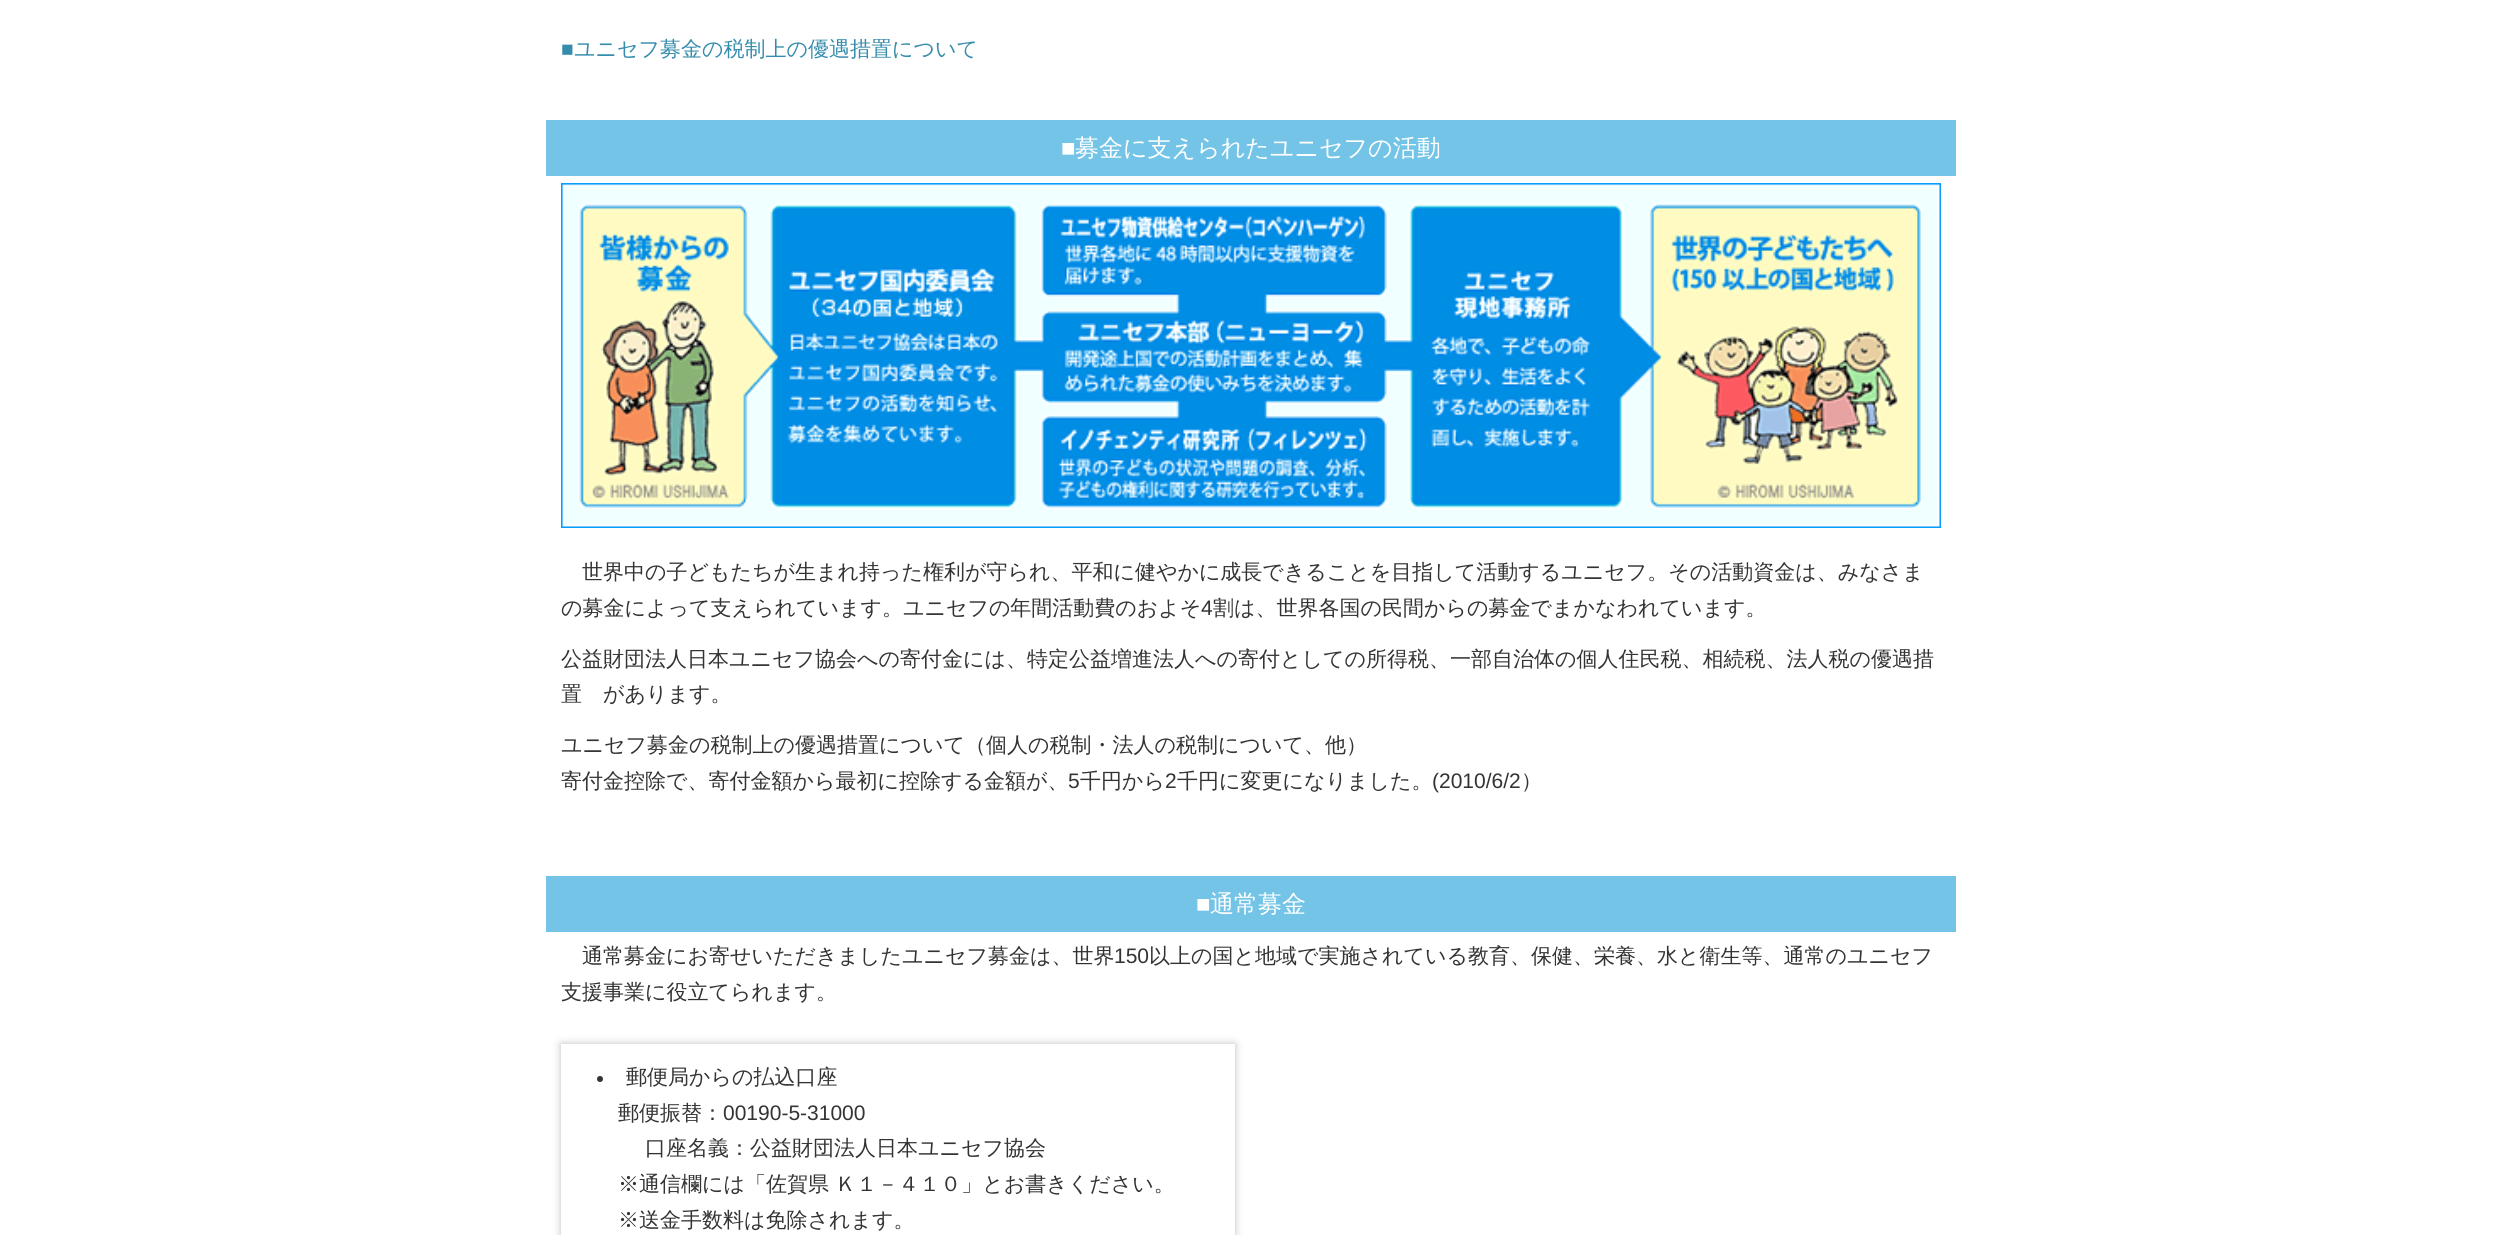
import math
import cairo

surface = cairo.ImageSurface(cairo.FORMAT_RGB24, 2501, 1235)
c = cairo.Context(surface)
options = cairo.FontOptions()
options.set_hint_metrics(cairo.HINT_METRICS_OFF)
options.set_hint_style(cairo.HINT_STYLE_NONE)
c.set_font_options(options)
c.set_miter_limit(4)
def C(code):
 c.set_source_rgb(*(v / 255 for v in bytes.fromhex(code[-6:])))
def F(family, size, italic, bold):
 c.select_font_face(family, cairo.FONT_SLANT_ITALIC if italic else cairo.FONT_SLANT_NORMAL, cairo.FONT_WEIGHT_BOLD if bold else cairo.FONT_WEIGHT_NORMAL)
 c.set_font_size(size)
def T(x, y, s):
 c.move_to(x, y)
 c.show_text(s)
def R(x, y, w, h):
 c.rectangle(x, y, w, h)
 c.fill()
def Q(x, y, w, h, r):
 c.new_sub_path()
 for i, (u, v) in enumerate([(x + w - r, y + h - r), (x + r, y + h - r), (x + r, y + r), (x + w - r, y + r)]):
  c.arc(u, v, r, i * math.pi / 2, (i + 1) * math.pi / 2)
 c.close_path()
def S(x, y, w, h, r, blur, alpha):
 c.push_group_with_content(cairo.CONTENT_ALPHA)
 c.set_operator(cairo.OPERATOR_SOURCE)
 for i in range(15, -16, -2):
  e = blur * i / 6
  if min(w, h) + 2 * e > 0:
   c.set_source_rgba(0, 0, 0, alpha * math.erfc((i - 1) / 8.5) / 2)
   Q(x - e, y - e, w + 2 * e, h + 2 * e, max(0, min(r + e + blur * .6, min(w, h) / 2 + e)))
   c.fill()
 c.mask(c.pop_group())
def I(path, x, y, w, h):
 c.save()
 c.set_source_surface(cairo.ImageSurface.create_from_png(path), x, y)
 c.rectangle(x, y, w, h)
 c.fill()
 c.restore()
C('ffffff')
c.paint()
F('Liberation Sans',21,0,0)
C('358cac')
T(561,56,'■')
F('WenQuanYi Zen Hei Medium',21,0,0)
T(574,56,'ユニセフ募金の税制上の優遇措置について')
C('73c4e6')
R(546,120,1410,56)
F('Liberation Sans',24,0,0)
C('ffffff')
T(1061,156,'■')
F('WenQuanYi Zen Hei Medium',24,0,0)
T(1075,156,'募金に支えられたユニセフの活動')
I('1.png',561,183,1380,345)
F('WenQuanYi Zen Hei Medium',21,0,0)
C('333333')
T(582,579,'世界中の子どもたちが生まれ持った権利が守られ、平和に健やかに成長できることを目指して活動するユニセフ。その活動資金は、みなさま')
T(561,615,'の募金によって支えられています。ユニセフの年間活動費のおよそ')
F('Liberation Sans',21,0,0)
T(1201,615,'4')
F('WenQuanYi Zen Hei Medium',21,0,0)
T(1213,615,'割は、世界各国の民間からの募金でまかなわれています。')
T(561,666,'公益財団法人日本ユニセフ協会への寄付金には、特定公益増進法人への寄付としての所得税、一部自治体の個人住民税、相続税、法人税の優遇措')
T(561,701,'置　があります。')
T(561,752,'ユニセフ募金の税制上の優遇措置について（個人の税制・法人の税制について、他）')
T(561,788,'寄付金控除で、寄付金額から最初に控除する金額が、')
F('Liberation Sans',21,0,0)
T(1068,788,'5')
F('WenQuanYi Zen Hei Medium',21,0,0)
T(1080,788,'千円から')
F('Liberation Sans',21,0,0)
T(1165,788,'2')
F('WenQuanYi Zen Hei Medium',21,0,0)
T(1177,788,'千円に変更になりました。')
F('Liberation Sans',21,0,0)
T(1432,788,'(2010/6/2')
F('WenQuanYi Zen Hei Medium',21,0,0)
T(1521,788,'）')
C('73c4e6')
R(546,876,1410,56)
F('Liberation Sans',24,0,0)
C('ffffff')
T(1196,912,'■')
F('WenQuanYi Zen Hei Medium',24,0,0)
T(1210,912,'通常募金')
F('WenQuanYi Zen Hei Medium',21,0,0)
C('333333')
T(582,963,'通常募金にお寄せいただきましたユニセフ募金は、世界')
F('Liberation Sans',21,0,0)
T(1114,963,'150')
F('WenQuanYi Zen Hei Medium',21,0,0)
T(1149,963,'以上の国と地域で実施されている教育、保健、栄養、水と衛生等、通常のユニセフ')
T(561,999,'支援事業に役立てられます。')
c.save()
c.set_fill_rule(cairo.FILL_RULE_EVEN_ODD)
c.new_path()
c.move_to(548,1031)
c.line_to(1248,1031)
c.line_to(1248,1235)
c.line_to(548,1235)
c.close_path()
c.move_to(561,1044)
c.line_to(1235,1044)
c.line_to(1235,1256)
c.line_to(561,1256)
c.close_path()
c.clip()
C('c0c0c0')
S(561,1044,674,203,0,4,1)
c.restore()
c.arc(600,1079,3,0,2 * math.pi)
c.fill()
T(626,1084,'郵便局からの払込口座')
T(618,1120,'郵便振替：')
F('Liberation Sans',21,0,0)
T(723,1120,'00190-5-31000')
F('WenQuanYi Zen Hei Medium',21,0,0)
T(645,1155,'口座名義：公益財団法人日本ユニセフ協会')
T(618,1191,'※通信欄には「佐賀県 Ｋ１－４１０」とお書きください。')
T(618,1227,'※送金手数料は免除されます。')
surface.write_to_png('o.png')
